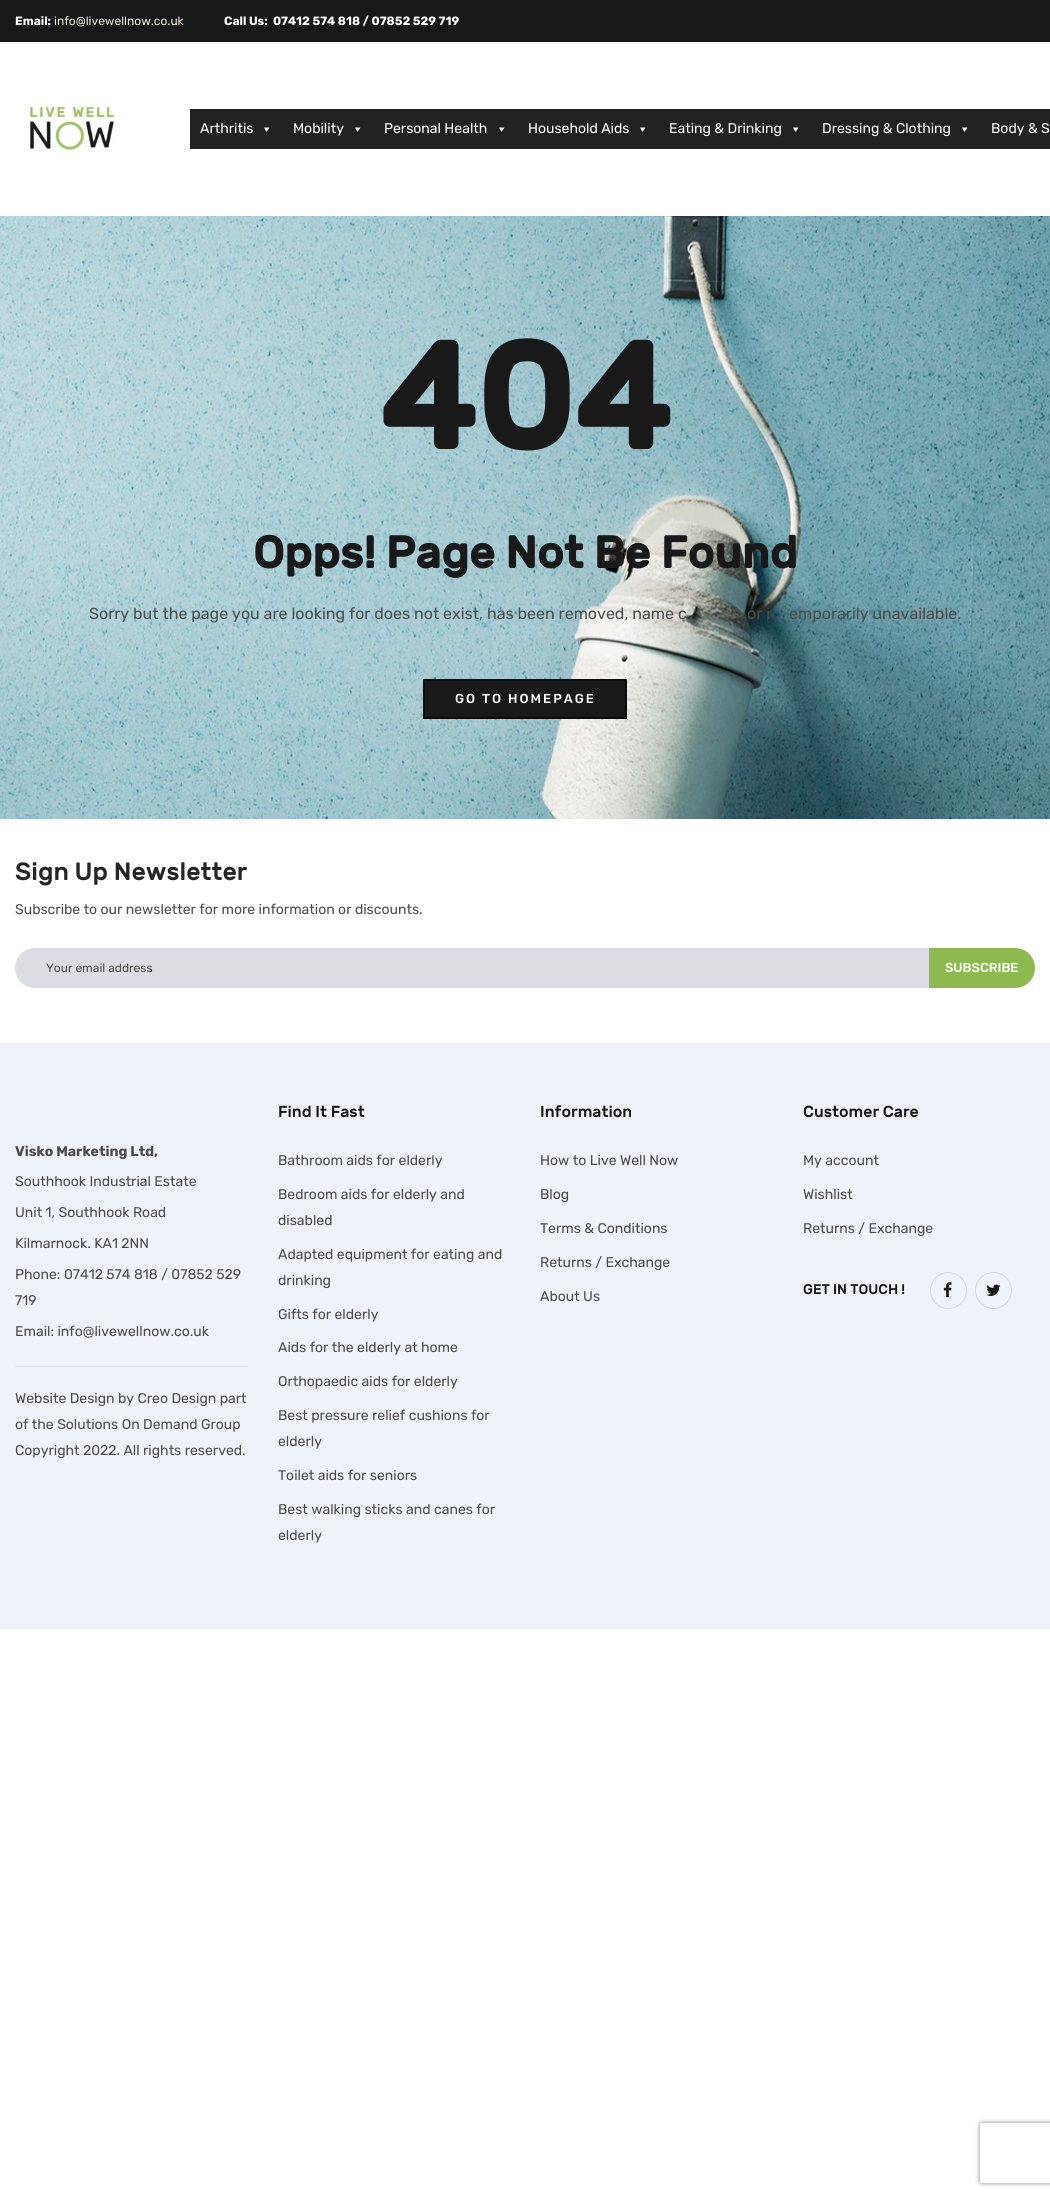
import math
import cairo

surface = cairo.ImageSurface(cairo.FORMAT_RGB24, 1050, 2197)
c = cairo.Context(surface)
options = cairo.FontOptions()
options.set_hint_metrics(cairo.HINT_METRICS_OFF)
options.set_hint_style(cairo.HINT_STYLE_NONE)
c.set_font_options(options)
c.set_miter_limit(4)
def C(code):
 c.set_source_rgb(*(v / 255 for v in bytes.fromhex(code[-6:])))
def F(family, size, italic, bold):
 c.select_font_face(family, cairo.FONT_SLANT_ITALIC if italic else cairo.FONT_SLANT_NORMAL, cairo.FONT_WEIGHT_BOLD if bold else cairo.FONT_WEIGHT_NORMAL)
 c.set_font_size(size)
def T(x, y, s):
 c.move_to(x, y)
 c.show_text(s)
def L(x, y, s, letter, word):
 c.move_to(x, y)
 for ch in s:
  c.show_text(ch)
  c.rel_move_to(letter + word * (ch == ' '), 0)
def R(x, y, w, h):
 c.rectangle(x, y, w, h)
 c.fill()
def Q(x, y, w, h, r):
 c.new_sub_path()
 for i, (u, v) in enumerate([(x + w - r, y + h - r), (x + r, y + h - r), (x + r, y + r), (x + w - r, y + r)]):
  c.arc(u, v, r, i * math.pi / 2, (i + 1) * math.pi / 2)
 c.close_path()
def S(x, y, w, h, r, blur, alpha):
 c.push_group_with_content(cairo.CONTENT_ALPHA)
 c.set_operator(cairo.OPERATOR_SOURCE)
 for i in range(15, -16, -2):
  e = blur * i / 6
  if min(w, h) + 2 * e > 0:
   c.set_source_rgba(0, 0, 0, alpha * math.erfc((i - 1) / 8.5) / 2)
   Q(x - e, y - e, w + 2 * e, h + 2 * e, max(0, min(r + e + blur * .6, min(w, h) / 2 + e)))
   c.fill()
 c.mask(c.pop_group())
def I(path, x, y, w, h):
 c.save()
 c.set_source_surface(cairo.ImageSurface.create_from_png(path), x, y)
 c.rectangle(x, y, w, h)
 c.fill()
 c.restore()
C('ffffff')
c.paint()
C('181818')
R(0,0,1050,42)
F('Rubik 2',12,0,1)
C('ffffff')
T(15,25,'Email:')
F('Rubik',12,0,0)
C('eeeae2')
T(54,25,'info@livewellnow.co.uk')
F('Rubik 2',12,0,1)
C('ffffff')
T(224,25,'Call Us:  07412 574 818 / 07852 529 719')
I('1.png',29,105,88,47)
C('222222')
R(190,109,860,40)
F('Rubik',14,0,0)
C('ffffff')
T(200,133,'Arthritis')
c.new_path()
c.move_to(269.5,127.5)
c.line_to(266.5,132)
c.line_to(264,127.5)
c.close_path()
c.fill()
T(293,133,'Mobility')
c.new_path()
c.move_to(360.5,127.5)
c.line_to(357.5,132)
c.line_to(355,127.5)
c.close_path()
c.fill()
T(384,133,'Personal Health')
c.new_path()
c.move_to(504.5,127.5)
c.line_to(501.5,132)
c.line_to(499,127.5)
c.close_path()
c.fill()
T(528,133,'Household Aids')
c.new_path()
c.move_to(645.5,127.5)
c.line_to(642.5,132)
c.line_to(640,127.5)
c.close_path()
c.fill()
T(669,133,'Eating & Drinking')
c.new_path()
c.move_to(798.5,127.5)
c.line_to(795.5,132)
c.line_to(793,127.5)
c.close_path()
c.fill()
T(822,133,'Dressing & Clothing')
c.new_path()
c.move_to(967.5,127.5)
c.line_to(964.5,132)
c.line_to(962,127.5)
c.close_path()
c.fill()
T(991,133,'Body & S')
I('2.png',0,216,1050,603)
F('Rubik',150,0,1)
C('191919')
T(379,449,'404')
F('Rubik',45,0,1)
T(253,568,'Opps! Page Not Be Found')
F('Rubik',16,0,0)
C('4c4c4c')
T(89,619,'Sorry but the page you are looking for does not exist, has been removed, name c')
T(747,619,'or i')
T(789,619,'emporarily unavailable.')
C('191919')
c.rectangle(424,680,202,38)
c.fill_preserve()
C('0c0c0c')
c.stroke()
F('Rubik Medium',13,0,0)
C('ffffff')
L(455,703,'GO TO HOMEPAGE',2,0)
C('f0f2f9')
R(0,1043,1050,586)
F('Rubik 2 Medium',25,0,0)
C('252525')
T(15,880,'Sign Up Newsletter')
F('Rubik',14,0,0)
C('4c4c4c')
T(15,914,'Subscribe to our newsletter for more information or discounts.')
C('8cba4f')
c.new_path()
c.move_to(929,949)
c.line_to(1015,949)
c.curve_to(1025.5,949,1034,957.5,1034,968)
c.curve_to(1034,978.5,1025.5,987,1015,987)
c.line_to(929,987)
c.close_path()
c.fill_preserve()
c.stroke()
C('dbdde3')
c.new_path()
c.move_to(35,948.5)
c.line_to(928.5,948.5)
c.line_to(928.5,987.5)
c.line_to(35,987.5)
c.curve_to(24,987.5,15.5,979,15.5,968)
c.curve_to(15.5,957,24,948.5,35,948.5)
c.close_path()
c.fill_preserve()
c.set_line_width(1)
c.stroke()
F('Rubik',12,0,0)
C('4c4c4c')
T(46,972,'Your email address')
F('Rubik Medium',13,0,0)
C('ffffff')
T(945,972,'SUBSCRIBE')
F('Rubik 2',14,0,1)
C('4c4c4c')
T(15,1156,'Visko Marketing Ltd,')
F('Rubik',14,0,0)
T(15,1186,'Southhook Industrial Estate')
T(15,1217,'Unit 1, Southhook Road')
T(15,1248,'Kilmarnock. KA1 2NN')
T(15,1279,'Phone: 07412 574 818 / 07852 529')
T(15,1305,'719')
T(15,1336,'Email: info@livewellnow.co.uk')
C('e3e4e8')
R(15,1366,233,1)
C('4c4c4c')
T(15,1403,'Website Design by Creo Design part')
T(15,1429,'of the Solutions On Demand Group')
T(15,1455,'Copyright 2022. All rights reserved.')
F('Rubik 2 Medium',16,0,0)
C('191919')
T(278,1117,'Find It Fast')
F('Rubik',14,0,0)
C('4c4c4c')
T(278,1165,'Bathroom aids for elderly')
T(278,1199,'Bedroom aids for elderly and')
T(278,1225,'disabled')
T(278,1259,'Adapted equipment for eating and')
T(278,1285,'drinking')
T(278,1319,'Gifts for elderly')
T(278,1352,'Aids for the elderly at home')
T(278,1386,'Orthopaedic aids for elderly')
T(278,1420,'Best pressure relief cushions for')
T(278,1446,'elderly')
T(278,1480,'Toilet aids for seniors')
T(278,1514,'Best walking sticks and canes for')
T(278,1540,'elderly')
F('Rubik 2 Medium',16,0,0)
C('191919')
T(540,1117,'Information')
F('Rubik',14,0,0)
C('4c4c4c')
T(540,1165,'How to Live Well Now')
T(540,1199,'Blog')
T(540,1233,'Terms & Conditions')
T(540,1267,'Returns / Exchange')
T(540,1301,'About Us')
F('Rubik 2 Medium',16,0,0)
C('191919')
T(803,1117,'Customer Care')
F('Rubik',14,0,0)
C('4c4c4c')
T(803,1165,'My account')
T(803,1199,'Wishlist')
T(803,1233,'Returns / Exchange')
F('Rubik 2 Medium',14,0,0)
C('191919')
T(803,1294,'GET IN TOUCH !')
c.new_path()
c.arc(948.5,1290.5,18,0,2 * math.pi)
C('d8d8d9')
c.stroke()
I('3.png',943,1282,9,16)
c.arc(993.5,1290.5,18,0,2 * math.pi)
c.stroke()
I('4.png',986,1284,15,12)
c.save()
c.set_fill_rule(cairo.FILL_RULE_EVEN_ODD)
c.new_path()
c.move_to(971,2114)
c.line_to(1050,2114)
c.line_to(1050,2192)
c.line_to(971,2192)
c.close_path()
c.move_to(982,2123)
c.line_to(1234,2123)
c.curve_to(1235,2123,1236,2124,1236,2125)
c.line_to(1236,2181)
c.curve_to(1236,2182,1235,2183,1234,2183)
c.line_to(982,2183)
c.curve_to(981,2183,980,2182,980,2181)
c.line_to(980,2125)
c.curve_to(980,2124,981,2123,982,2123)
c.close_path()
c.clip()
C('808080')
S(980,2123,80,60,2,2.5,1)
c.restore()
surface.write_to_png('o.png')
